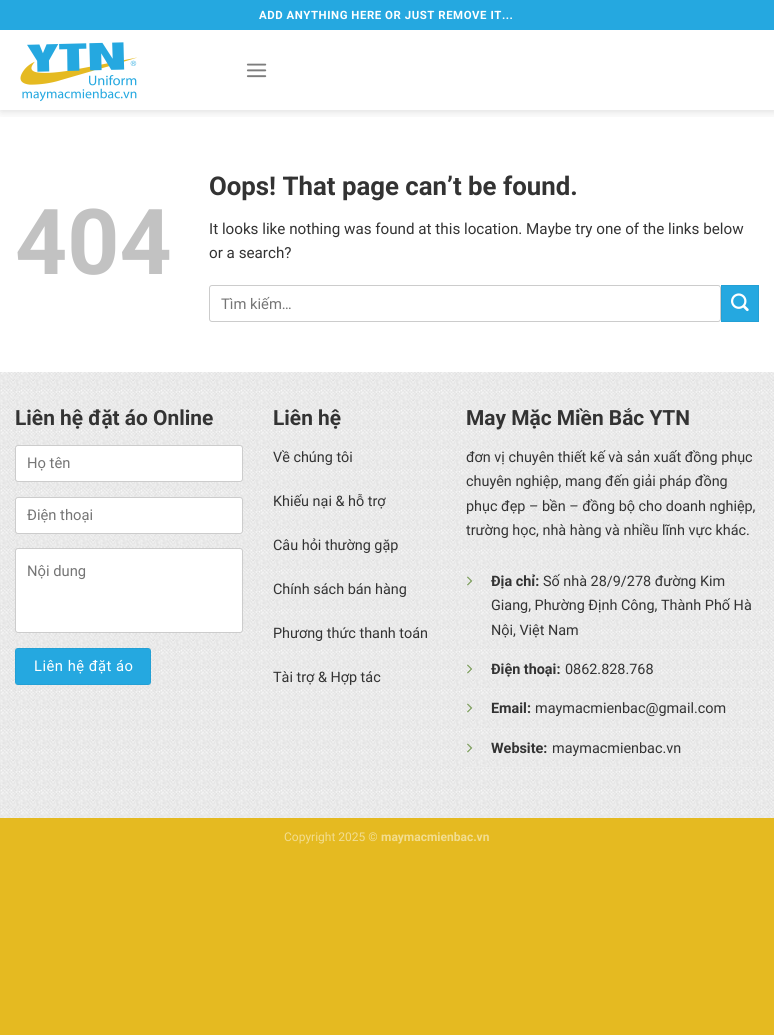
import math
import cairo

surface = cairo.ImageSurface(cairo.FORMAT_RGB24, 774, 1035)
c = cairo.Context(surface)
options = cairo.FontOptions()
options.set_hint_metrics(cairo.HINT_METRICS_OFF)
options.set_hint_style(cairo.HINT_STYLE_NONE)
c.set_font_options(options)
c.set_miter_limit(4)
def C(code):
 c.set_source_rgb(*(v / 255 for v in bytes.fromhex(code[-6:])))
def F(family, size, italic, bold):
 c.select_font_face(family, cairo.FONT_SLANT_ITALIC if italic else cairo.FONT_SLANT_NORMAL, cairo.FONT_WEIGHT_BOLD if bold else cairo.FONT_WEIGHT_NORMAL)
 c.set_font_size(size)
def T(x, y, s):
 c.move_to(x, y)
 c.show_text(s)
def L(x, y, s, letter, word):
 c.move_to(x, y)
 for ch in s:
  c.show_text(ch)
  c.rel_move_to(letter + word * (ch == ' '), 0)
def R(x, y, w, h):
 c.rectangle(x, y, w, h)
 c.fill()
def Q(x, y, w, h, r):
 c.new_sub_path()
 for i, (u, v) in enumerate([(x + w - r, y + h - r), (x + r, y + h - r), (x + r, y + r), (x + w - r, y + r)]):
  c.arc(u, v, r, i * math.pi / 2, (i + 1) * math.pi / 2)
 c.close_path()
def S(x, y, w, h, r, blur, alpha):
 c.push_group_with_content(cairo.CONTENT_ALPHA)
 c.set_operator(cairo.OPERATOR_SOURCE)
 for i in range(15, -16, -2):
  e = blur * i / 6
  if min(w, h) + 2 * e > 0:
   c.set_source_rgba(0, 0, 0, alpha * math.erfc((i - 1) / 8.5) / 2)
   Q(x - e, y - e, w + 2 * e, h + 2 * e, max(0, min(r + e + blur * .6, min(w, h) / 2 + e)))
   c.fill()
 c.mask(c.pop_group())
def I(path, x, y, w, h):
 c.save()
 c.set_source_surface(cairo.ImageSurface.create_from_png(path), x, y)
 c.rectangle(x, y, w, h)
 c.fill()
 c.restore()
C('e5ba21')
c.paint()
C('ffffff')
R(0,30,774,342)
c.save()
c.rectangle(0,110,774,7)
c.clip()
C('000000')
S(1,1,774,110,0,5,.15)
c.restore()
C('25a8e0')
R(0,0,774,30)
F('Roboto',11.4,0,1)
C('ffffff')
L(259,19,'ADD ANYTHING HERE OR JUST REMOVE IT...',.55,0)
I('1.png',20,42,117,60)
I('2.png',246,63,21,15)
F('Roboto',91,0,1)
C('c2c2c2')
T(15,274,'404')
F('Roboto',25.8,0,1)
C('333333')
T(209,195,'Oops! That page can’t be found.')
F('Roboto',15.2,0,0)
T(209,234,'It looks like nothing was found at this location. Maybe try one of the links below')
T(209,258,'or a search?')
Q(209.5,285.5,511,36,2.5)
C('cccccc')
c.set_line_width(1)
c.stroke()
F('Roboto',14.75,0,0)
C('757575')
T(221,309,'Tìm kiếm…')
C('25a8e0')
c.rectangle(721.5,285.5,37,36)
c.fill_preserve()
C('23a0d5')
c.stroke()
I('3.png',731,293,18,19)
I('4.png',0,372,774,446)
F('Roboto',20.9,0,1)
C('333333')
T(15,425,'Liên hệ đặt áo Online')
C('ffffff')
Q(15.5,445.5,227,36,2.5)
c.fill_preserve()
C('cccccc')
c.stroke()
F('Roboto',14.75,0,0)
C('757575')
T(27,468,'Họ tên')
C('ffffff')
Q(15.5,497.5,227,36,2.5)
c.fill_preserve()
C('cccccc')
c.stroke()
C('757575')
T(27,520,'Điện thoại')
C('ffffff')
Q(15.5,548.5,227,84,2.5)
c.fill_preserve()
C('cccccc')
c.stroke()
C('757575')
T(27,576,'Nội dung')
C('25a8e0')
Q(15,648,136,37,3)
c.fill()
c.rectangle(15.5,648.5,135,36)
c.set_source_rgba(0,0,0,0.05)
c.stroke()
C('ffffff')
L(34,671,'Liên hệ đặt áo',.5,0)
F('Roboto',20.9,0,1)
C('333333')
T(273,425,'Liên hệ')
F('Roboto',14.4,0,0)
T(273,462,'Về chúng tôi')
T(273,506,'Khiếu nại & hỗ trợ')
T(273,550,'Câu hỏi thường gặp')
T(273,594,'Chính sách bán hàng')
T(273,638,'Phương thức thanh toán')
T(273,682,'Tài trợ & Hợp tác')
F('Roboto',20.9,0,1)
T(466,425,'May Mặc Miền Bắc YTN')
F('Roboto',14.4,0,0)
T(466,462,'đơn vị chuyên thiết kế và sản xuất đồng phục')
T(466,486,'chuyên nghiệp, mang đến giải pháp đồng')
T(466,511,'phục đẹp – bền – đồng bộ cho doanh nghiệp,')
T(466,535,'trường học, nhà hàng và nhiều lĩnh vực khác.')
C('ececec')
R(466,649,293,1)
I('5.png',467,576,6,10)
F('Roboto',14.4,0,1)
C('333333')
T(491,586,'Địa chỉ:')
F('Roboto',14.4,0,0)
T(543,586,'Số nhà 28/9/278 đường Kim')
T(491,610,'Giang, Phường Định Công, Thành Phố Hà')
T(491,635,'Nội, Việt Nam')
C('ececec')
R(466,688,293,1)
I('6.png',467,664,6,10)
F('Roboto',14.4,0,1)
C('333333')
T(491,674,'Điện thoại:')
F('Roboto',14.4,0,0)
T(565,674,'0862.828.768')
C('ececec')
R(466,728,293,1)
I('7.png',467,703,6,10)
F('Roboto',14.4,0,1)
C('333333')
T(491,713,'Email:')
F('Roboto',14.4,0,0)
T(535,713,'maymacmienbac@gmail.com')
C('ececec')
R(466,767,293,1)
I('7.png',467,743,6,10)
F('Roboto',14.4,0,1)
C('333333')
T(491,753,'Website:')
F('Roboto',14.4,0,0)
T(552,753,'maymacmienbac.vn')
F('Roboto',12,0,0)
C('f2dd90')
T(284,841,'Copyright 2025 ©')
F('Roboto',12,0,1)
T(381,841,'maymacmienbac.vn')
surface.write_to_png('o.png')
